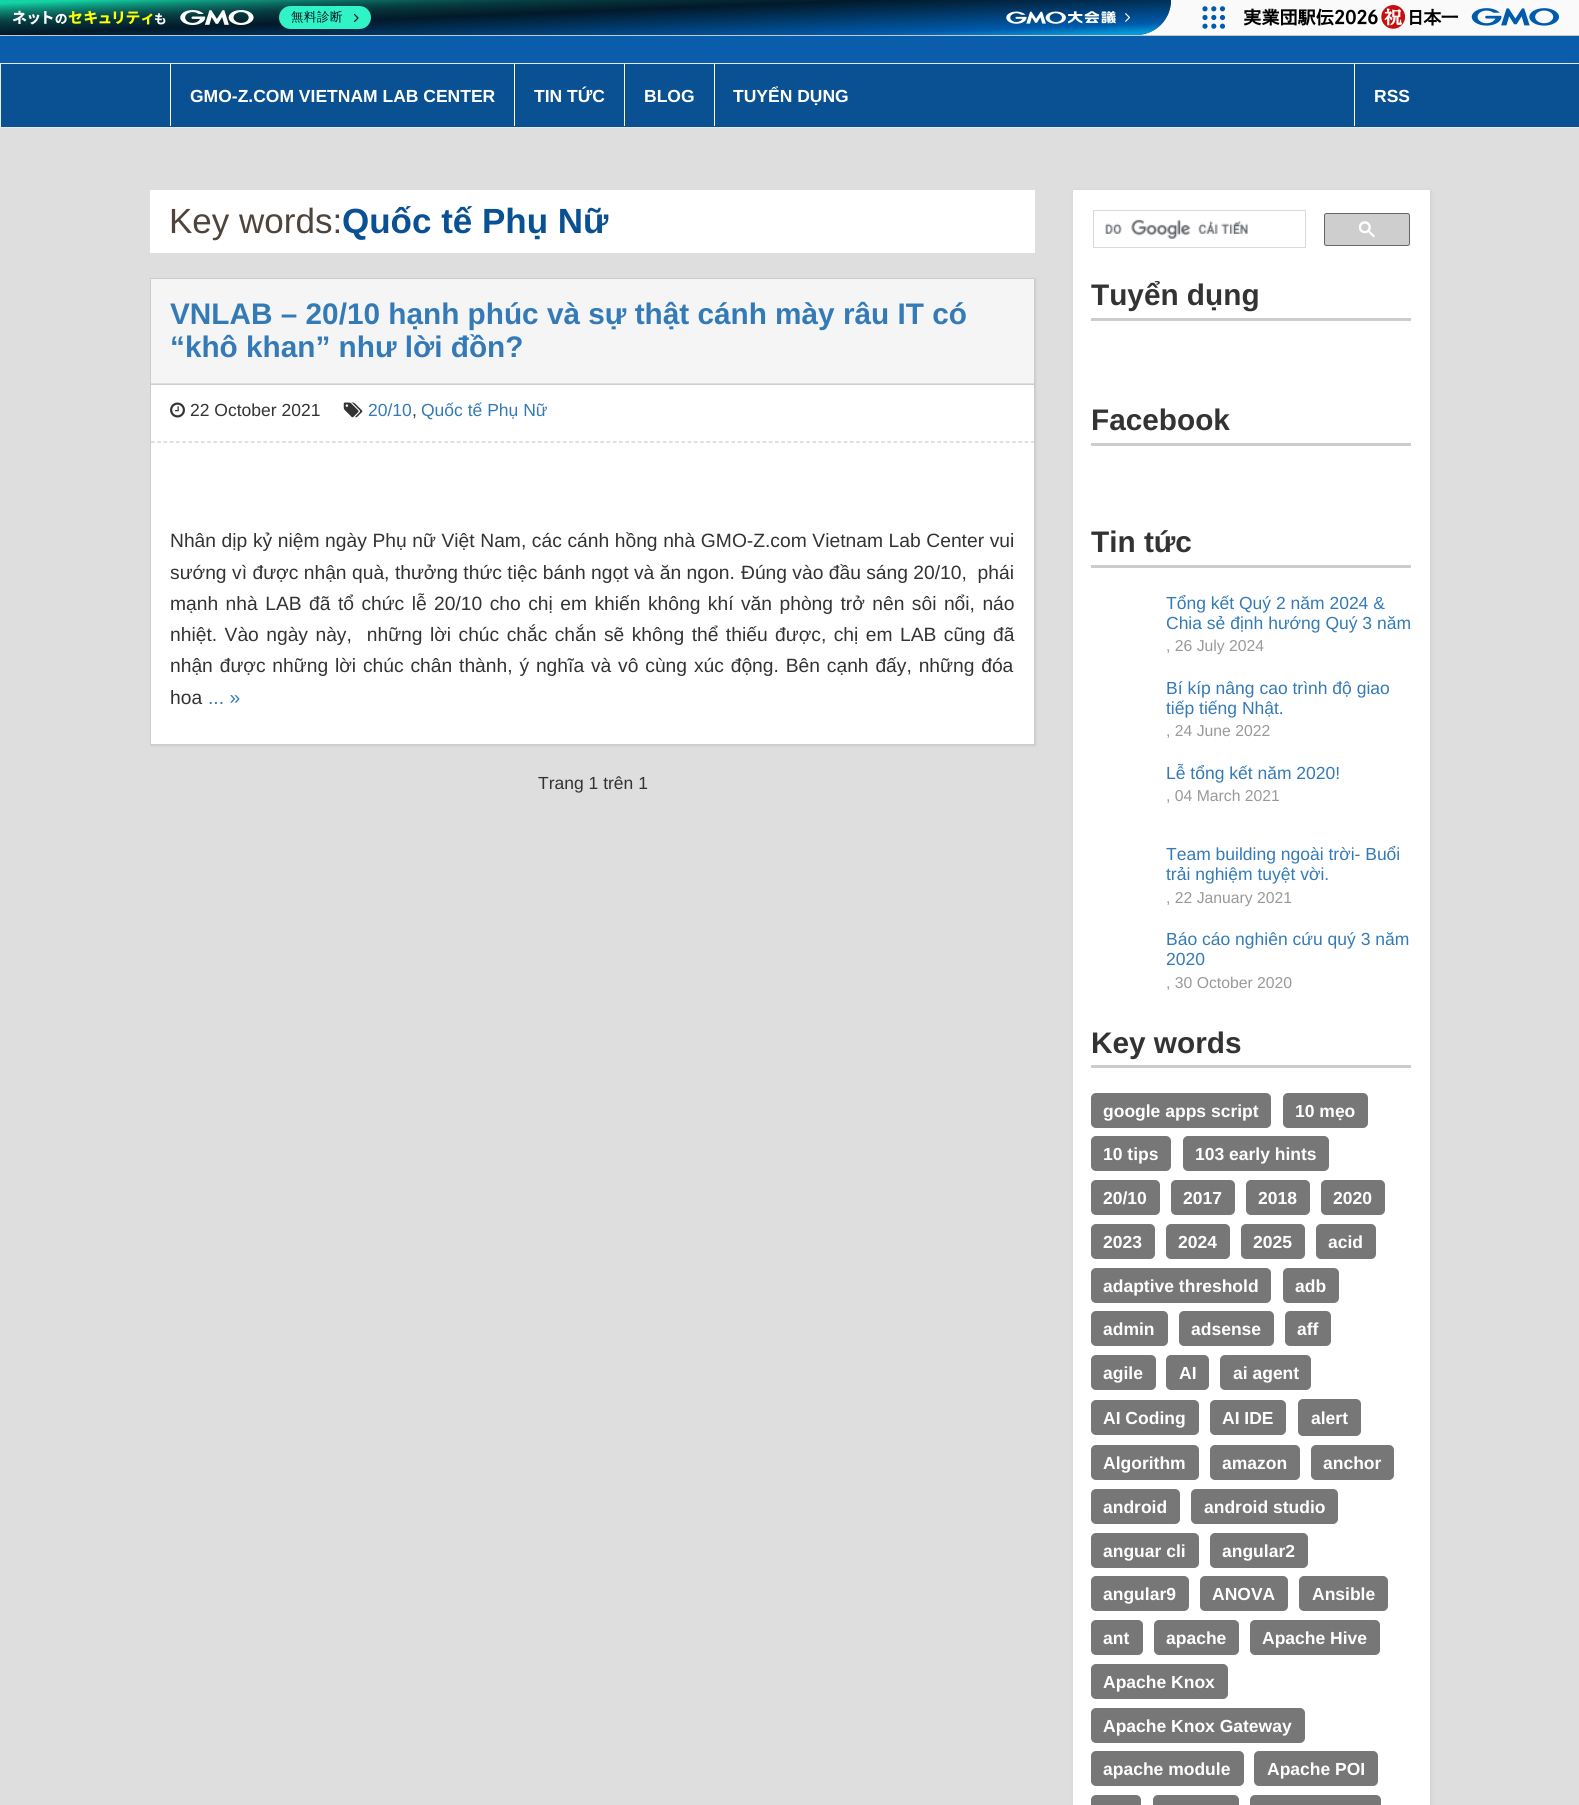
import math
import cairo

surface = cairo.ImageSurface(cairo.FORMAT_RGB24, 1579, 1805)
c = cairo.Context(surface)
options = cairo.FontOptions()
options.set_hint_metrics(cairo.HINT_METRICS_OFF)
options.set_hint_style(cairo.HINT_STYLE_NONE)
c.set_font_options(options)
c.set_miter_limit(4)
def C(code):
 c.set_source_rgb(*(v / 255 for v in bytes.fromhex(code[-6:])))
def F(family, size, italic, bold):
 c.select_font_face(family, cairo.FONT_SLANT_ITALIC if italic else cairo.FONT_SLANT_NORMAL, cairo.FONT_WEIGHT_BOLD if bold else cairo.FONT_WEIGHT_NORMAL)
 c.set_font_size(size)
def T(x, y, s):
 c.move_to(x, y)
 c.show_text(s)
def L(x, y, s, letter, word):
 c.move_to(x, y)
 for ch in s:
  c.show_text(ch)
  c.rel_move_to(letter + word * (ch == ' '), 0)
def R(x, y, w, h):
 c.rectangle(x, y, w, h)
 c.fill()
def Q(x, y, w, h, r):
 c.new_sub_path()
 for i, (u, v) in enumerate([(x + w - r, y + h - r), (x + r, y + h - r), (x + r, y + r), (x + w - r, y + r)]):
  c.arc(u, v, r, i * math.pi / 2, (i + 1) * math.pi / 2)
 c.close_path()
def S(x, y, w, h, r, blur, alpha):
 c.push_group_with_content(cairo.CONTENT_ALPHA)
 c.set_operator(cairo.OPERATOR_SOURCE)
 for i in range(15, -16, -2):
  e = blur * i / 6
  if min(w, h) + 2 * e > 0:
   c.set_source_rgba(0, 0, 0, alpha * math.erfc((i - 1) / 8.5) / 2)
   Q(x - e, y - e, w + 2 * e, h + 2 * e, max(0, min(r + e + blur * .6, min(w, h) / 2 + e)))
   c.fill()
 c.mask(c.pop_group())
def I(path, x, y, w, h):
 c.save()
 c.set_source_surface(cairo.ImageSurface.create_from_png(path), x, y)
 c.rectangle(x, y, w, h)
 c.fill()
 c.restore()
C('0a5dab')
c.paint()
C('fafafa')
R(1136,0,443,35)
C('c8c8c8')
R(0,35,1579,1)
gradient = cairo.LinearGradient(584,-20,587,55)
gradient.add_color_stop_rgba(0,0.075,0.831,0.647,1)
gradient.add_color_stop_rgba(.25,0.055,0.451,0.396,1)
gradient.add_color_stop_rgba(.58,0.043,0.302,0.294,1)
c.set_source(gradient)
c.new_path()
c.move_to(0,0)
c.line_to(1171,0)
c.curve_to(1171,19.5,1155.5,35,1136,35)
c.line_to(0,35)
c.close_path()
c.fill()
gradient = cairo.LinearGradient(587,55,584,-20)
gradient.add_color_stop_rgba(0,0.004,0.612,0.851,1)
gradient.add_color_stop_rgba(.12,0,0.357,0.675,1)
gradient.add_color_stop_rgba(.58,0.008,0.098,0.165,1)
gradient.add_color_stop_rgba(1,0.008,0.098,0.165,0)
c.set_source(gradient)
c.new_path()
c.move_to(0,0)
c.line_to(1171,0)
c.curve_to(1171,19.5,1155.5,35,1136,35)
c.line_to(0,35)
c.close_path()
c.fill()
I('1.png',13,10,241,15)
C('30f4c5')
Q(279,6,92,23,11.5)
c.fill()
F('WenQuanYi Zen Hei Medium',12.5,0,0)
C('021725')
L(291,21,'無料診断',.5,0)
c.new_path()
c.move_to(354.5,14.5)
c.line_to(358,18)
c.line_to(354.5,21.5)
c.set_line_width(1.2)
c.set_line_cap(cairo.LINE_CAP_ROUND)
c.set_line_join(cairo.LINE_JOIN_ROUND)
c.stroke()
I('2.png',1006,11,124,13)
I('3.png',1202,6,24,23)
I('4.png',1244,5,315,24)
C('0a5194')
c.rectangle(.5,63.5,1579,64)
c.fill_preserve()
C('e7e7e7')
c.set_line_width(1)
c.set_line_cap(cairo.LINE_CAP_BUTT)
c.set_line_join(cairo.LINE_JOIN_MITER)
c.stroke()
C('ffffff')
R(170,64,1,62)
F('Liberation Sans',17.5,0,1)
T(190,102,'GMO-Z.COM VIETNAM LAB CENTER')
R(514,64,1,62)
T(534,102,'TIN TỨC')
R(624,64,1,62)
T(644,102,'BLOG')
R(714,64,1,62)
T(733,102,'TUYỂN DỤNG')
R(1354,64,1,62)
T(1374,102,'RSS')
C('dedede')
R(0,128,1579,1677)
C('ffffff')
R(150,190,885,63)
F('Liberation Sans',35,0,0)
C('4e443c')
T(169,233,'Key words:')
F('Liberation Sans',35,0,1)
C('0a5194')
T(342,233,'Quốc tế Phụ Nữ')
C('cccccc')
S(151,279,885,467,0,1,1)
C('ffffff')
R(151,385,883,359)
c.rectangle(150.5,278.5,884,466)
C('cccccc')
c.stroke()
C('f5f5f5')
R(151,279,883,104)
C('cccccc')
R(151,384,1,1)
C('dedede')
R(151,383,883,1)
F('Liberation Sans',29.75,0,1)
C('337ab7')
T(170,324,'VNLAB – 20/10 hạnh phúc và sự thật cánh mày râu IT có')
T(170,357,'“khô khan” như lời đồn?')
c.new_path()
c.move_to(151,442)
c.line_to(1034,442)
C('cccccc')
c.set_line_width(1.2)
c.set_dash([3.75,2.49])
c.stroke()
I('5.png',170,402,15,16)
F('Liberation Sans',17.5,0,0)
C('333333')
T(190,416,'22 October 2021')
I('6.png',343,402,20,16)
C('337ab7')
T(368,416,'20/10')
C('333333')
T(412,416,',')
C('337ab7')
T(421,416,'Quốc tế Phụ Nữ')
F('Liberation Sans',19.25,0,0)
C('333333')
L(170,547,'Nhân dịp kỷ niệm ngày Phụ nữ Việt Nam, các cánh hồng nhà GMO-Z.com Vietnam Lab Center vui',0,.25)
L(170,579,'sướng vì được nhận quà, thưởng thức tiệc bánh ngọt và ăn ngon.',0,.1)
T(741,579,'Đúng vào đầu sáng 20/10,  phái')
L(170,610,'mạnh nhà LAB đã tổ chức lễ 20/10 cho chị em khiến không khí văn phòng trở nên sôi nổi, náo',0,2.1)
L(170,641,'nhiệt. Vào ngày này,  những lời chúc chắc chắn sẽ không thể thiếu được, chị em LAB cũng đã',0,2.1)
L(170,672,'nhận được những lời chúc chân thành, ý nghĩa và vô cùng xúc động. Bên cạnh đấy, những đóa',0,1.5)
T(170,704,'hoa')
C('337ab7')
T(208,704,'... »')
F('Liberation Sans',17.5,0,0)
C('333333')
T(538,789,'Trang 1 trên 1')
C('cccccc')
S(1074,191,357,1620,0,2,1)
C('ffffff')
R(1073,190,357,1615)
c.rectangle(1093.5,210.5,212,37)
C('d9d9d9')
c.set_line_width(1)
c.set_dash([])
c.stroke()
I('7.png',1105,219,143,20)
C('cecece')
Q(1324.5,213.5,85,32,2)
c.fill_preserve()
C('666666')
c.stroke()
I('8.png',1359,221,16,17)
C('cccccc')
R(1091,318,320,3)
F('Liberation Sans',29.75,0,1)
C('333333')
T(1091,305,'Tuyển dụng')
C('cccccc')
R(1091,443,320,3)
C('333333')
T(1091,430,'Facebook')
C('cccccc')
R(1091,565,320,3)
C('333333')
T(1091,552,'Tin tức')
F('Liberation Sans',17.5,0,0)
C('337ab7')
T(1166,609,'Tổng kết Quý 2 năm 2024 &')
T(1166,629,'Chia sẻ định hướng Quý 3 năm')
F('Liberation Sans',15.75,0,0)
C('999999')
T(1166,651,', 26 July 2024')
F('Liberation Sans',17.5,0,0)
C('337ab7')
T(1166,694,'Bí kíp nâng cao trình độ giao')
T(1166,714,'tiếp tiếng Nhật.')
F('Liberation Sans',15.75,0,0)
C('999999')
T(1166,736,', 24 June 2022')
F('Liberation Sans',17.5,0,0)
C('337ab7')
T(1166,779,'Lễ tổng kết năm 2020!')
F('Liberation Sans',15.75,0,0)
C('999999')
T(1166,801,', 04 March 2021')
F('Liberation Sans',17.5,0,0)
C('337ab7')
T(1166,860,'Team building ngoài trời- Buổi')
T(1166,880,'trải nghiệm tuyệt vời.')
F('Liberation Sans',15.75,0,0)
C('999999')
T(1166,903,', 22 January 2021')
F('Liberation Sans',17.5,0,0)
C('337ab7')
T(1166,945,'Báo cáo nghiên cứu quý 3 năm')
T(1166,965,'2020')
F('Liberation Sans',15.75,0,0)
C('999999')
T(1166,988,', 30 October 2020')
C('cccccc')
R(1091,1065,320,3)
F('Liberation Sans',29.75,0,1)
C('333333')
T(1091,1053,'Key words')
C('777777')
Q(1091,1093,180,35,5)
c.fill()
F('Liberation Sans',17.5,0,1)
C('ffffff')
T(1103,1117,'google apps script')
C('777777')
Q(1283,1093,85,35,5)
c.fill()
C('ffffff')
T(1295,1117,'10 mẹo')
C('777777')
Q(1091,1136,80,35,5)
c.fill()
C('ffffff')
T(1103,1160,'10 tips')
C('777777')
Q(1183,1136,146,35,5)
c.fill()
C('ffffff')
T(1195,1160,'103 early hints')
C('777777')
Q(1091,1180,69,35,5)
c.fill()
C('ffffff')
T(1103,1204,'20/10')
C('777777')
Q(1171,1180,64,35,5)
c.fill()
C('ffffff')
T(1183,1204,'2017')
C('777777')
Q(1246,1180,64,35,5)
c.fill()
C('ffffff')
T(1258,1204,'2018')
C('777777')
Q(1321,1180,64,35,5)
c.fill()
C('ffffff')
T(1333,1204,'2020')
C('777777')
Q(1091,1224,64,35,5)
c.fill()
C('ffffff')
T(1103,1248,'2023')
C('777777')
Q(1166,1224,64,35,5)
c.fill()
C('ffffff')
T(1178,1248,'2024')
C('777777')
Q(1241,1224,64,35,5)
c.fill()
C('ffffff')
T(1253,1248,'2025')
C('777777')
Q(1316,1224,60,35,5)
c.fill()
C('ffffff')
T(1328,1248,'acid')
C('777777')
Q(1091,1268,180,35,5)
c.fill()
C('ffffff')
T(1103,1292,'adaptive threshold')
C('777777')
Q(1283,1268,56,35,5)
c.fill()
C('ffffff')
T(1295,1292,'adb')
C('777777')
Q(1091,1311,77,35,5)
c.fill()
C('ffffff')
T(1103,1335,'admin')
C('777777')
Q(1179,1311,95,35,5)
c.fill()
C('ffffff')
T(1191,1335,'adsense')
C('777777')
Q(1285,1311,46,35,5)
c.fill()
C('ffffff')
T(1297,1335,'aff')
C('777777')
Q(1091,1355,65,35,5)
c.fill()
C('ffffff')
T(1103,1379,'agile')
C('777777')
Q(1166,1355,43,35,5)
c.fill()
C('ffffff')
T(1179,1379,'AI')
C('777777')
Q(1220,1355,91,35,5)
c.fill()
C('ffffff')
T(1233,1379,'ai agent')
C('777777')
Q(1091,1400,108,35,5)
c.fill()
C('ffffff')
T(1103,1424,'AI Coding')
C('777777')
Q(1210,1400,76,35,5)
c.fill()
C('ffffff')
T(1222,1424,'AI IDE')
C('777777')
Q(1298,1399,63,37,5)
c.fill()
C('ffffff')
T(1311,1424,'alert')
C('777777')
Q(1091,1445,108,35,5)
c.fill()
C('ffffff')
T(1103,1469,'Algorithm')
C('777777')
Q(1210,1445,90,35,5)
c.fill()
C('ffffff')
T(1222,1469,'amazon')
C('777777')
Q(1311,1445,83,35,5)
c.fill()
C('ffffff')
T(1323,1469,'anchor')
C('777777')
Q(1091,1489,89,35,5)
c.fill()
C('ffffff')
T(1103,1513,'android')
C('777777')
Q(1191,1489,147,35,5)
c.fill()
C('ffffff')
T(1204,1513,'android studio')
C('777777')
Q(1091,1533,108,35,5)
c.fill()
C('ffffff')
T(1103,1557,'anguar cli')
C('777777')
Q(1210,1533,98,35,5)
c.fill()
C('ffffff')
T(1222,1557,'angular2')
C('777777')
Q(1091,1576,98,35,5)
c.fill()
C('ffffff')
T(1103,1600,'angular9')
C('777777')
Q(1200,1576,88,35,5)
c.fill()
C('ffffff')
T(1212,1600,'ANOVA')
C('777777')
Q(1299,1576,89,35,5)
c.fill()
C('ffffff')
T(1312,1600,'Ansible')
C('777777')
Q(1091,1620,52,35,5)
c.fill()
C('ffffff')
T(1103,1644,'ant')
C('777777')
Q(1154,1620,85,35,5)
c.fill()
C('ffffff')
T(1166,1644,'apache')
C('777777')
Q(1250,1620,130,35,5)
c.fill()
C('ffffff')
T(1262,1644,'Apache Hive')
C('777777')
Q(1091,1664,137,35,5)
c.fill()
C('ffffff')
T(1103,1688,'Apache Knox')
C('777777')
Q(1091,1708,214,35,5)
c.fill()
C('ffffff')
T(1103,1732,'Apache Knox Gateway')
C('777777')
Q(1091,1751,153,35,5)
c.fill()
C('ffffff')
T(1103,1775,'apache module')
C('777777')
Q(1254,1751,124,35,5)
c.fill()
C('ffffff')
T(1267,1775,'Apache POI')
C('777777')
Q(1091,1795,50,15,5)
c.fill()
Q(1153,1795,86,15,5)
c.fill()
Q(1250,1795,131,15,5)
c.fill()
surface.write_to_png('o.png')
